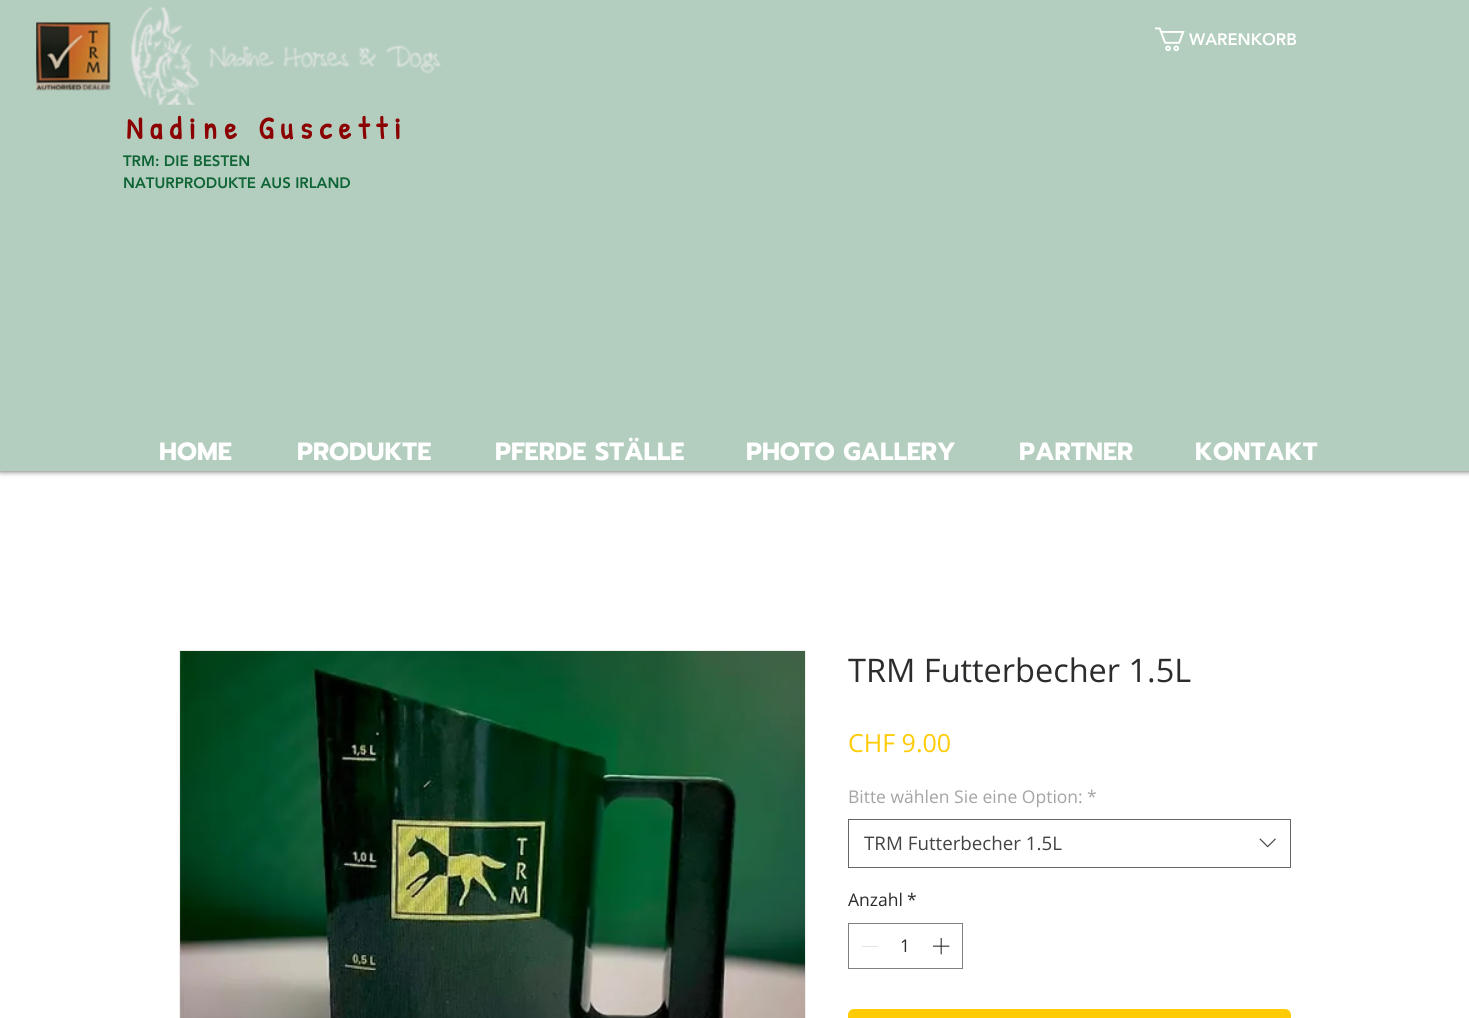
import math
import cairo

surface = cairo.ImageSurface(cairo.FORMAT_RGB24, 1469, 1018)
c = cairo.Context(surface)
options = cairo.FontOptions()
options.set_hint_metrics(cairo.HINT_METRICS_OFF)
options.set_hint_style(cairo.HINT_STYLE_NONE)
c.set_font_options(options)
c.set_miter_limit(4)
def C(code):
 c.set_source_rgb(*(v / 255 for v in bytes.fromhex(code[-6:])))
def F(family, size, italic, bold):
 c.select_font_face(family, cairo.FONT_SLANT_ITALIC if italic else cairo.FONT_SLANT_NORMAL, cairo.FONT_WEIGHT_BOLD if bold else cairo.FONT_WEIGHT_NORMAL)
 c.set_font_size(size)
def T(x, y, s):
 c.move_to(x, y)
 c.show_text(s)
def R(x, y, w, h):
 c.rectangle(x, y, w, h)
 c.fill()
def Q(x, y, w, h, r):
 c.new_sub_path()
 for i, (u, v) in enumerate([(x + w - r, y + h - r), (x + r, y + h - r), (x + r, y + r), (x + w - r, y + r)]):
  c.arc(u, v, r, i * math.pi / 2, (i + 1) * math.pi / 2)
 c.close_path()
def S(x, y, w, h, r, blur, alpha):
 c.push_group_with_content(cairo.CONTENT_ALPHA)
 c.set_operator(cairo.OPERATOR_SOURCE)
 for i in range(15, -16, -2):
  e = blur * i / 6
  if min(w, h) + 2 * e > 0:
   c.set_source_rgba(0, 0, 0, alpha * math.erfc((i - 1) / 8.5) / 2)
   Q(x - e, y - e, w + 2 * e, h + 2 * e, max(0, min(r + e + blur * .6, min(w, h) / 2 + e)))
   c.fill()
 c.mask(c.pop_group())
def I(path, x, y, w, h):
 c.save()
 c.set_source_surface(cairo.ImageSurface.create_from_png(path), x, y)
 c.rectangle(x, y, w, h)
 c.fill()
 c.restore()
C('ffffff')
c.paint()
C('000000')
S(0,0,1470,471,0,3,.7)
C('b3cebf')
R(0,0,1469,471)
I('1.png',36,22,75,69)
I('2.png',130,7,311,98)
I('3.png',1155,27,30,25)
F('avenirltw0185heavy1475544 Black',16.5,0,0)
C('ffffff')
T(1189,45,'WARENKORB')
F('Patrick Hand',31.25,0,1)
C('8b0000')
T(126,139,'N a d i n e   G u s c e t t i')
F('avenirltw0185heavy1475544 Black',15,0,0)
C('0f6535')
T(123,166,'TRM: DIE BESTEN')
T(123,188,'NATURPRODUKTE AUS IRLAND')
F('Prompt',25,0,1)
C('ffffff')
T(159,460,'HOME')
T(297,460,'PRODUKTE')
T(495,460,'PFERDE STÄLLE')
T(746,460,'PHOTO GALLERY')
T(1019,460,'PARTNER')
T(1195,460,'KONTAKT')
c.rectangle(179.5,650.5,626,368)
C('ededec')
c.set_line_width(1)
c.stroke()
I('4.png',180,651,625,367)
F('Open Sans',32.5,0,0)
C('2c2c2b')
T(848,682,'TRM Futterbecher 1.5L')
F('Open Sans',25,0,0)
C('ffcb05')
T(848,752,'CHF 9.00')
F('Open Sans',17.5,0,0)
C('a4a4a4')
T(848,803,'Bitte wählen Sie eine Option:')
T(1087,803,'*')
c.rectangle(848.5,819.5,442,48)
C('666666')
c.stroke()
F('Open Sans',18.75,0,0)
C('444444')
T(864,850,'TRM Futterbecher 1.5L')
I('5.png',1259,838,17,10)
F('Open Sans',17.5,0,0)
C('2c2c2b')
T(848,906,'Anzahl')
T(907,906,'*')
c.rectangle(848.5,923.5,114,45)
C('808080')
c.stroke()
C('e3e3e3')
R(862,946,16,1)
C('2c2c2b')
T(900,952,'1')
I('6.png',933,938,17,17)
C('ffcb05')
Q(848,1009,443,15,6)
c.fill()
surface.write_to_png('o.png')
